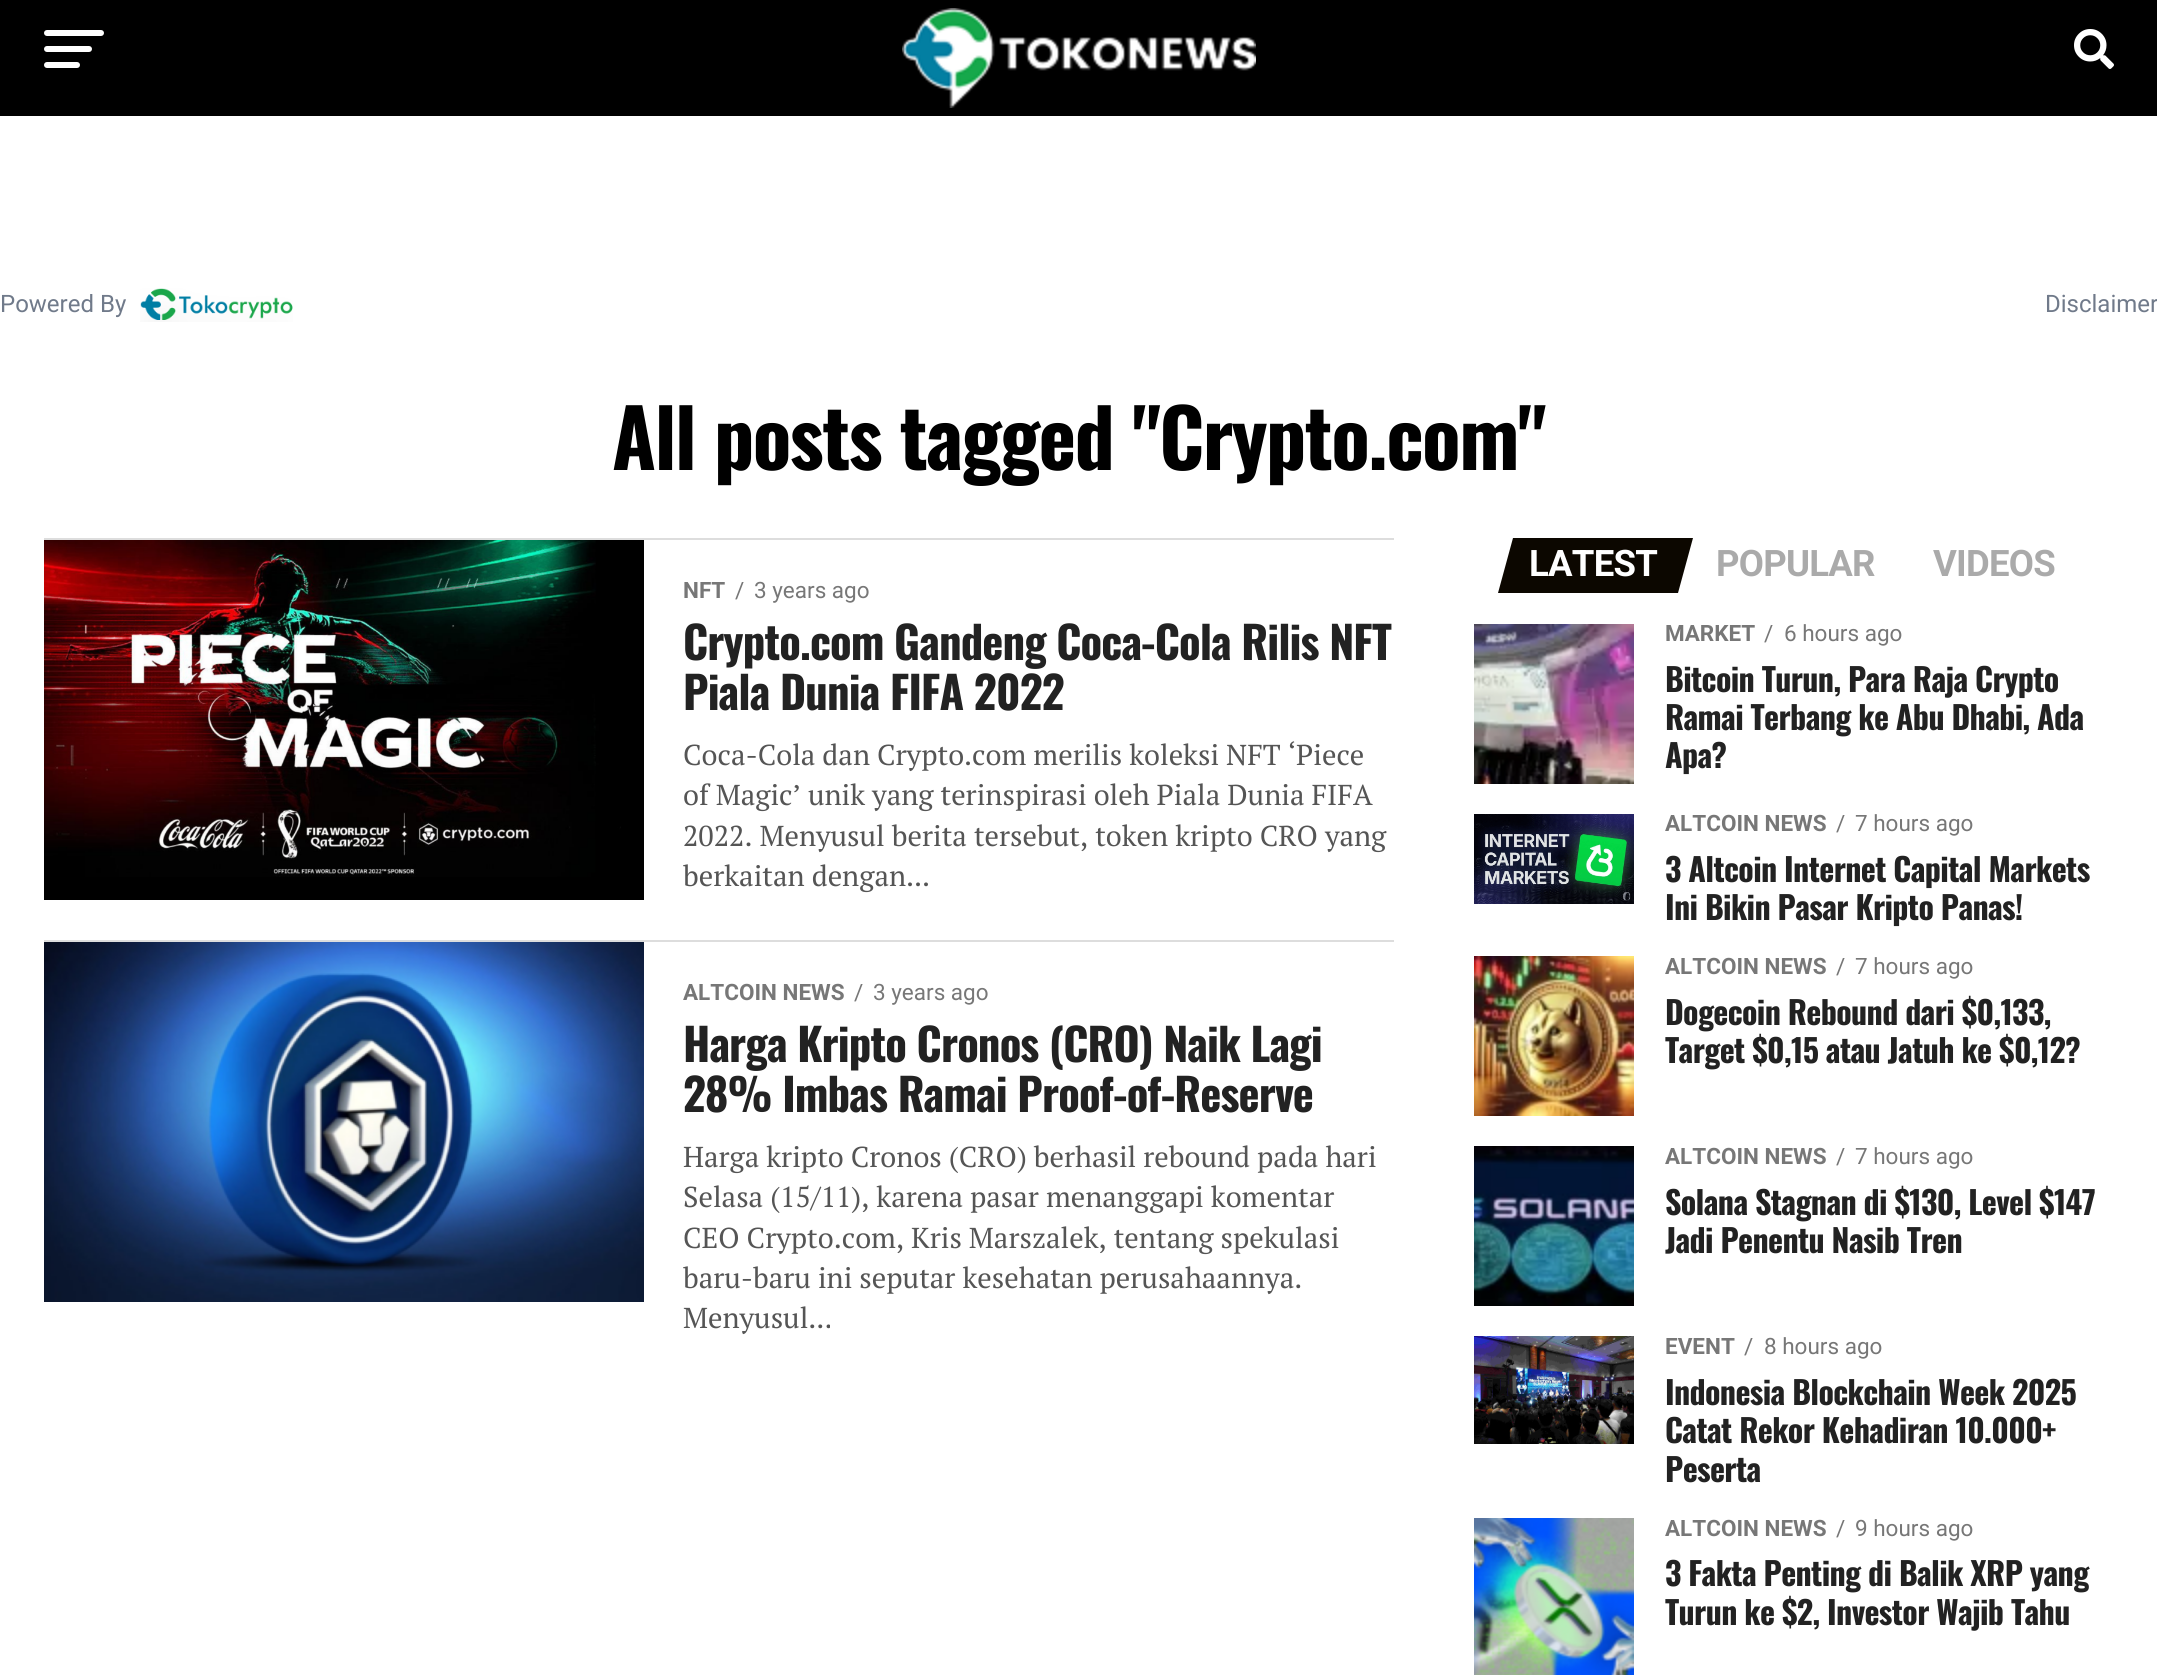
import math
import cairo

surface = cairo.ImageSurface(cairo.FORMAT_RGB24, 2157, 1675)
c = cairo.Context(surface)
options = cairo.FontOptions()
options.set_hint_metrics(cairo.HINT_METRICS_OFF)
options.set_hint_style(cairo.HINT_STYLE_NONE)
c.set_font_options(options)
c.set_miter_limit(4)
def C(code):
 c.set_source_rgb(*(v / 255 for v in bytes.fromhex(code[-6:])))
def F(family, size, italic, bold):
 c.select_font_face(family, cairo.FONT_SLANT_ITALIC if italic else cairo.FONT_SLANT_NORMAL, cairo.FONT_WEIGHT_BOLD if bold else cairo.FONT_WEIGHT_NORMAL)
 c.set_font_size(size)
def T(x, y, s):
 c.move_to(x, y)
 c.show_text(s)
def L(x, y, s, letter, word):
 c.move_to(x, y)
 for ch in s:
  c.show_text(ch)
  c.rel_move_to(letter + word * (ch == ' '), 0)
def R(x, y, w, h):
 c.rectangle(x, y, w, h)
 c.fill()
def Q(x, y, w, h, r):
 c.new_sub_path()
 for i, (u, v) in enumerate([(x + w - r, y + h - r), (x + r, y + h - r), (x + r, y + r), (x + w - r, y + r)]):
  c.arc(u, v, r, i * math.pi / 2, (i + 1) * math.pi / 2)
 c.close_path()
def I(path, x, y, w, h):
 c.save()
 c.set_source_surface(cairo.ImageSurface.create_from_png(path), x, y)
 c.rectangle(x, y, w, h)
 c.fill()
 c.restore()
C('ffffff')
c.paint()
C('000000')
R(0,0,2157,116)
C('ffffff')
Q(44,30,60,6,3)
c.fill()
Q(44,46,48,6,3)
c.fill()
Q(44,62,36,6,3)
c.fill()
I('1.png',902,8,354,100)
I('2.png',2074,29,40,40)
F('Roboto',24,0,0)
C('707a8a')
T(0,312,'Powered By')
I('3.png',140,288,153,34)
T(2045,312,'Disclaimer')
F('Oswald',80,0,1)
C('000000')
L(612,470,'All posts tagged "Crypto.com"',-1.6,0)
C('dddddd')
R(44,538,1350,2)
C('000000')
R(44,540,600,360)
I('4.png',44,540,577,337)
F('Roboto',22.5,0,1)
C('777777')
T(683,598,'NFT')
F('Roboto',22.5,0,0)
T(735,598,'/')
T(754,598,'3 years ago')
F('Oswald',44.75,0,1)
C('222222')
L(683,660,'Crypto.com Gandeng Coca-Cola Rilis NFT',-.9,0)
L(683,710,'Piala Dunia FIFA 2022',-.9,0)
F('PT Serif',28.8,0,0)
C('555555')
T(683,765,'Coca-Cola dan Crypto.com merilis koleksi NFT ‘Piece')
T(683,805,'of Magic’ unik yang terinspirasi oleh Piala Dunia FIFA')
T(683,846,'2022. Menyusul berita tersebut, token kripto CRO yang')
T(683,886,'berkaitan dengan...')
C('dddddd')
R(44,940,1350,2)
I('5.png',44,942,600,360)
F('Roboto',22.5,0,1)
C('777777')
T(683,1000,'ALTCOIN NEWS')
F('Roboto',22.5,0,0)
T(854,1000,'/')
T(873,1000,'3 years ago')
F('Oswald',44.75,0,1)
C('222222')
L(683,1062,'Harga Kripto Cronos (CRO) Naik Lagi',-.9,0)
L(683,1112,'28% Imbas Ramai Proof-of-Reserve',-.9,0)
F('PT Serif',28.8,0,0)
C('555555')
T(683,1167,'Harga kripto Cronos (CRO) berhasil rebound pada hari')
T(683,1207,'Selasa (15/11), karena pasar menanggapi komentar')
T(683,1248,'CEO Crypto.com, Kris Marszalek, tentang spekulasi')
T(683,1288,'baru-baru ini seputar kesehatan perusahaannya.')
T(683,1328,'Menyusul...')
C('0c0700')
c.new_path()
c.move_to(1513,538)
c.line_to(1693,538)
c.line_to(1678,593)
c.line_to(1498,593)
c.close_path()
c.fill()
F('Roboto',36.5,0,1)
C('ffffff')
L(1529,576,'LATEST',-.75,0)
C('aaaaaa')
L(1716,576,'POPULAR',-.75,0)
L(1933,576,'VIDEOS',-.75,0)
I('6.png',1474,624,160,160)
F('Roboto',22.5,0,1)
C('777777')
T(1665,641,'MARKET')
F('Roboto',22.5,0,0)
T(1764,641,'/')
T(1784,641,'6 hours ago')
F('Oswald',32,0,1)
C('222222')
L(1665,692,'Bitcoin Turun, Para Raja Crypto',-.65,0)
L(1665,730,'Ramai Terbang ke Abu Dhabi, Ada',-.65,0)
L(1665,768,'Apa?',-.65,0)
I('7.png',1474,814,160,90)
F('Roboto',22.5,0,1)
C('777777')
T(1665,831,'ALTCOIN NEWS')
F('Roboto',22.5,0,0)
T(1836,831,'/')
T(1855,831,'7 hours ago')
F('Oswald',32,0,1)
C('222222')
L(1665,882,'3 Altcoin Internet Capital Markets',-.65,0)
L(1665,920,'Ini Bikin Pasar Kripto Panas!',-.65,0)
I('8.png',1474,956,160,160)
F('Roboto',22.5,0,1)
C('777777')
T(1665,974,'ALTCOIN NEWS')
F('Roboto',22.5,0,0)
T(1836,974,'/')
T(1855,974,'7 hours ago')
F('Oswald',32,0,1)
C('222222')
L(1665,1025,'Dogecoin Rebound dari $0,133,',-.65,0)
L(1665,1063,'Target $0,15 atau Jatuh ke $0,12?',-.65,0)
I('9.png',1474,1146,160,160)
F('Roboto',22.5,0,1)
C('777777')
T(1665,1164,'ALTCOIN NEWS')
F('Roboto',22.5,0,0)
T(1836,1164,'/')
T(1855,1164,'7 hours ago')
F('Oswald',32,0,1)
C('222222')
L(1665,1215,'Solana Stagnan di $130, Level $147',-.65,0)
L(1665,1253,'Jadi Penentu Nasib Tren',-.65,0)
I('10.png',1474,1336,160,108)
F('Roboto',22.5,0,1)
C('777777')
T(1665,1354,'EVENT')
F('Roboto',22.5,0,0)
T(1744,1354,'/')
T(1764,1354,'8 hours ago')
F('Oswald',32,0,1)
C('222222')
L(1665,1405,'Indonesia Blockchain Week 2025',-.65,0)
L(1665,1443,'Catat Rekor Kehadiran 10.000+',-.65,0)
L(1665,1482,'Peserta',-.65,0)
I('11.png',1474,1518,160,157)
F('Roboto',22.5,0,1)
C('777777')
T(1665,1536,'ALTCOIN NEWS')
F('Roboto',22.5,0,0)
T(1836,1536,'/')
T(1855,1536,'9 hours ago')
F('Oswald',32,0,1)
C('222222')
L(1665,1586,'3 Fakta Penting di Balik XRP yang',-.65,0)
L(1665,1625,'Turun ke $2, Investor Wajib Tahu',-.65,0)
surface.write_to_png('o.png')
